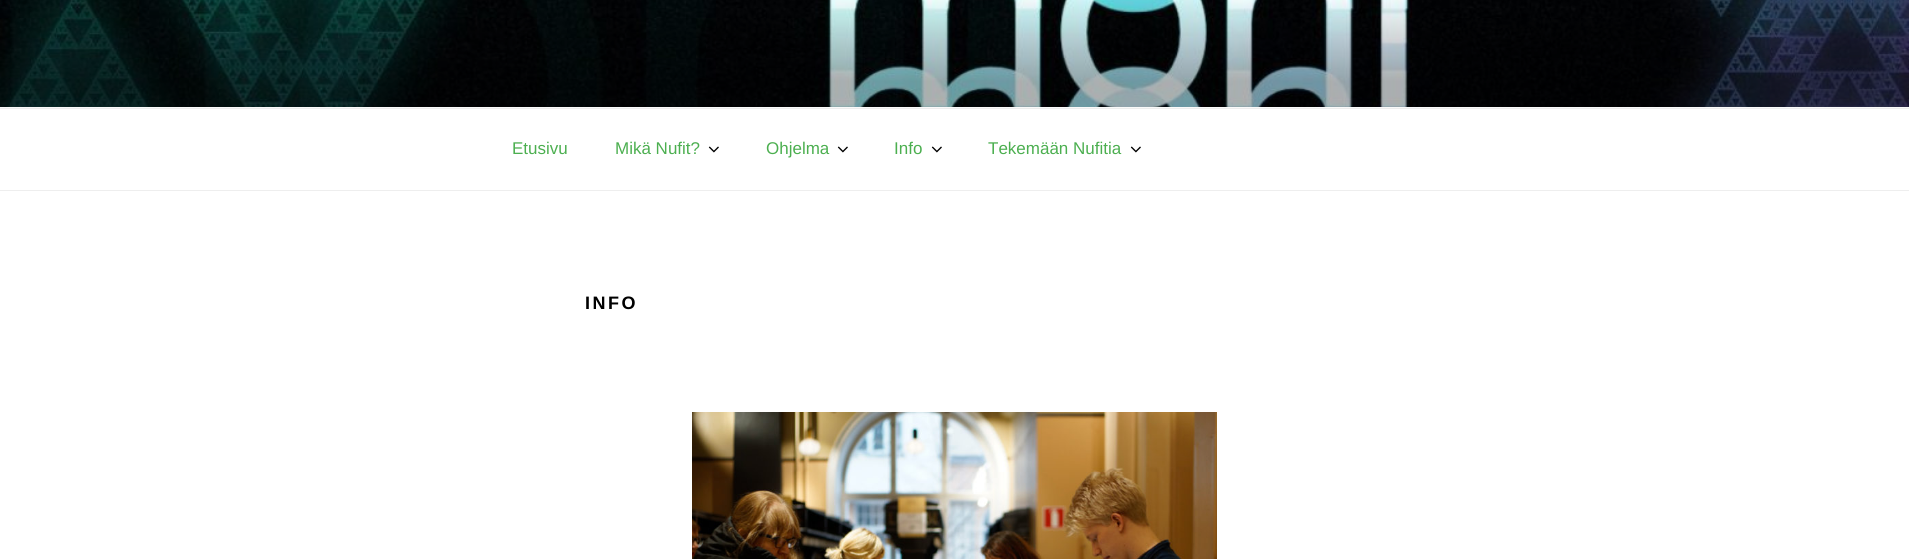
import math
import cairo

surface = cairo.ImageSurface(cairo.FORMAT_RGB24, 1909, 559)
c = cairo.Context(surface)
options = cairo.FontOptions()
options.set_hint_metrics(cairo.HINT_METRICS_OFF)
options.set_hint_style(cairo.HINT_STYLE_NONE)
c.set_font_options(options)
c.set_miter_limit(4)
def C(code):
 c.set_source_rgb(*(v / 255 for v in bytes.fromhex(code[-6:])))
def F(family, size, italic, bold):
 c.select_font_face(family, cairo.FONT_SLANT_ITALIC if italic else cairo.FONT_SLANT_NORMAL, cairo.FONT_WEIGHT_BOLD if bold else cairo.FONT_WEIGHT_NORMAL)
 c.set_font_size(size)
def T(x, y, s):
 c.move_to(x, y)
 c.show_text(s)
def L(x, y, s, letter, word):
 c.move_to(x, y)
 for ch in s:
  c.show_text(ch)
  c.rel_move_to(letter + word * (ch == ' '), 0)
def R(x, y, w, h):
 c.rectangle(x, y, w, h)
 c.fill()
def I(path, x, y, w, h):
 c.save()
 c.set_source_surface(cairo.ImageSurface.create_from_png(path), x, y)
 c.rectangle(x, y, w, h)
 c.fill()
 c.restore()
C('ffffff')
c.paint()
C('fafafa')
R(0,107,1909,1)
I('1.png',0,0,1909,107)
C('eeeeee')
R(0,108,1909,1)
R(0,190,1909,1)
F('Liberation Sans',17,0,0)
C('4caf50')
T(512,154,'Etusivu')
T(615,154,'Mikä Nufit?')
I('2.png',708,146,11,7)
T(766,154,'Ohjelma')
I('2.png',837,146,11,7)
T(894,154,'Info')
I('2.png',931,146,11,7)
T(988,154,'Tekemään Nufitia')
I('2.png',1130,146,11,7)
F('Liberation Sans',18,0,1)
C('000000')
L(585,309,'INFO',2.5,0)
I('3.png',692,412,525,147)
surface.write_to_png('o.png')
